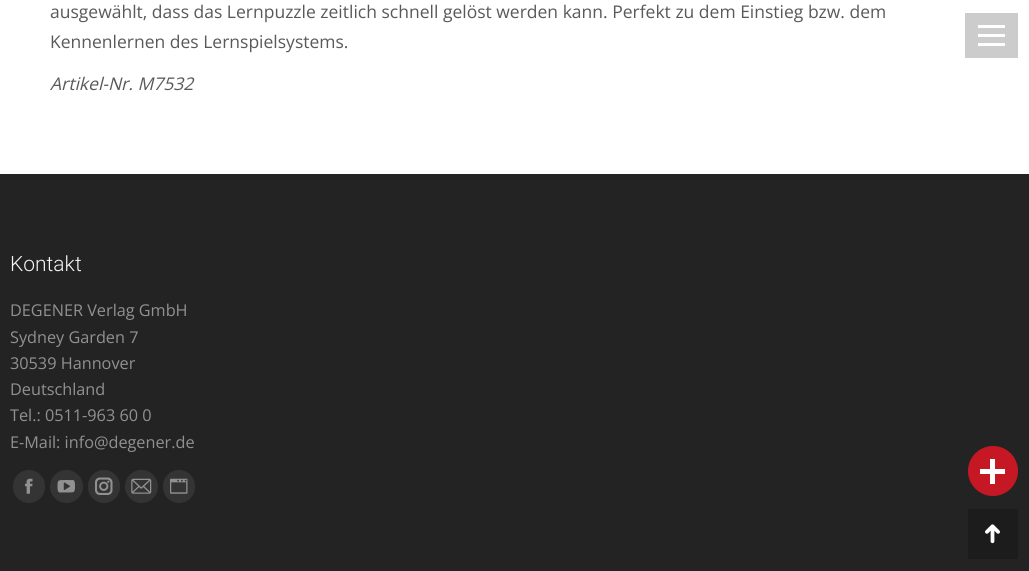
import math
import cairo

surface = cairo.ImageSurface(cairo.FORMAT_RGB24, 1029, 571)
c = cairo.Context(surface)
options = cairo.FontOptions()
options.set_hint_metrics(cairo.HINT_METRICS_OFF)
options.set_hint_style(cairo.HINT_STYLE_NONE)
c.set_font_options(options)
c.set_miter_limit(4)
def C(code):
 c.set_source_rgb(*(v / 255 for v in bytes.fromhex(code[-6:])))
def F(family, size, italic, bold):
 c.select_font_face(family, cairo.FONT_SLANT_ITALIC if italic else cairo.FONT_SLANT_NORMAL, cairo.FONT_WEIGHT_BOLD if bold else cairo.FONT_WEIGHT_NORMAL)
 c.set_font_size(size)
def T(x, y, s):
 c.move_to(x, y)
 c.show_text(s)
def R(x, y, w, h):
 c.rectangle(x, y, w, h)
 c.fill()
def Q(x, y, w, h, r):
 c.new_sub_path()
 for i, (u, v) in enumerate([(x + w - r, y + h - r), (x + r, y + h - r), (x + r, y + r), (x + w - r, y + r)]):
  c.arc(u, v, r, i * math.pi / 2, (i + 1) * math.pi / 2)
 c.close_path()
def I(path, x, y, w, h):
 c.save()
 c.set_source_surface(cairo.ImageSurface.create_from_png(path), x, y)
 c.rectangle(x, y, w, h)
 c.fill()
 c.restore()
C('ffffff')
c.paint()
F('Open Sans',17.5,0,0)
C('595959')
T(50,18,'ausgewählt, dass das Lernpuzzle zeitlich schnell gelöst werden kann. Perfekt zu dem Einstieg bzw. dem')
T(50,48,'Kennenlernen des Lernspielsystems.')
F('Open Sans',17.5,1,0)
T(50,90,'Artikel-Nr. M7532')
C('cccccc')
R(965,13,53,45)
C('ffffff')
R(978,25,27,3)
R(978,34,27,3)
R(978,43,27,3)
C('232323')
R(0,174,1029,397)
F('Roboto Light',21,0,0)
C('f4f4f4')
T(10,271,'Kontakt')
F('Open Sans',16.25,0,0)
C('919191')
T(10,316,'DEGENER Verlag GmbH')
T(10,343,'Sydney Garden 7')
T(10,369,'30539 Hannover')
T(10,395,'Deutschland')
T(10,421,'Tel.: 0511-963 60 0')
T(10,448,'E-Mail: info@degener.de')
C('343434')
Q(13,470,32,33,16)
c.fill()
I('1.png',25,478,8,16)
c.arc(66.5,486.5,16.5,0,2 * math.pi)
c.fill()
I('2.png',57,480,18,13)
Q(88,470,32,33,16)
c.fill()
I('3.png',95,477,18,18)
c.arc(141.5,486.5,16.5,0,2 * math.pi)
c.fill()
I('4.png',131,478,21,16)
Q(163,470,32,33,16)
c.fill()
I('5.png',170,478,18,16)
C('1c1c1c')
R(968,509,50,50)
I('6.png',985,524,15,20)
C('c51824')
c.arc(993,471,25,0,2 * math.pi)
c.fill()
C('ffffff')
R(980,469,25,5)
R(990,459,5,25)
surface.write_to_png('o.png')
